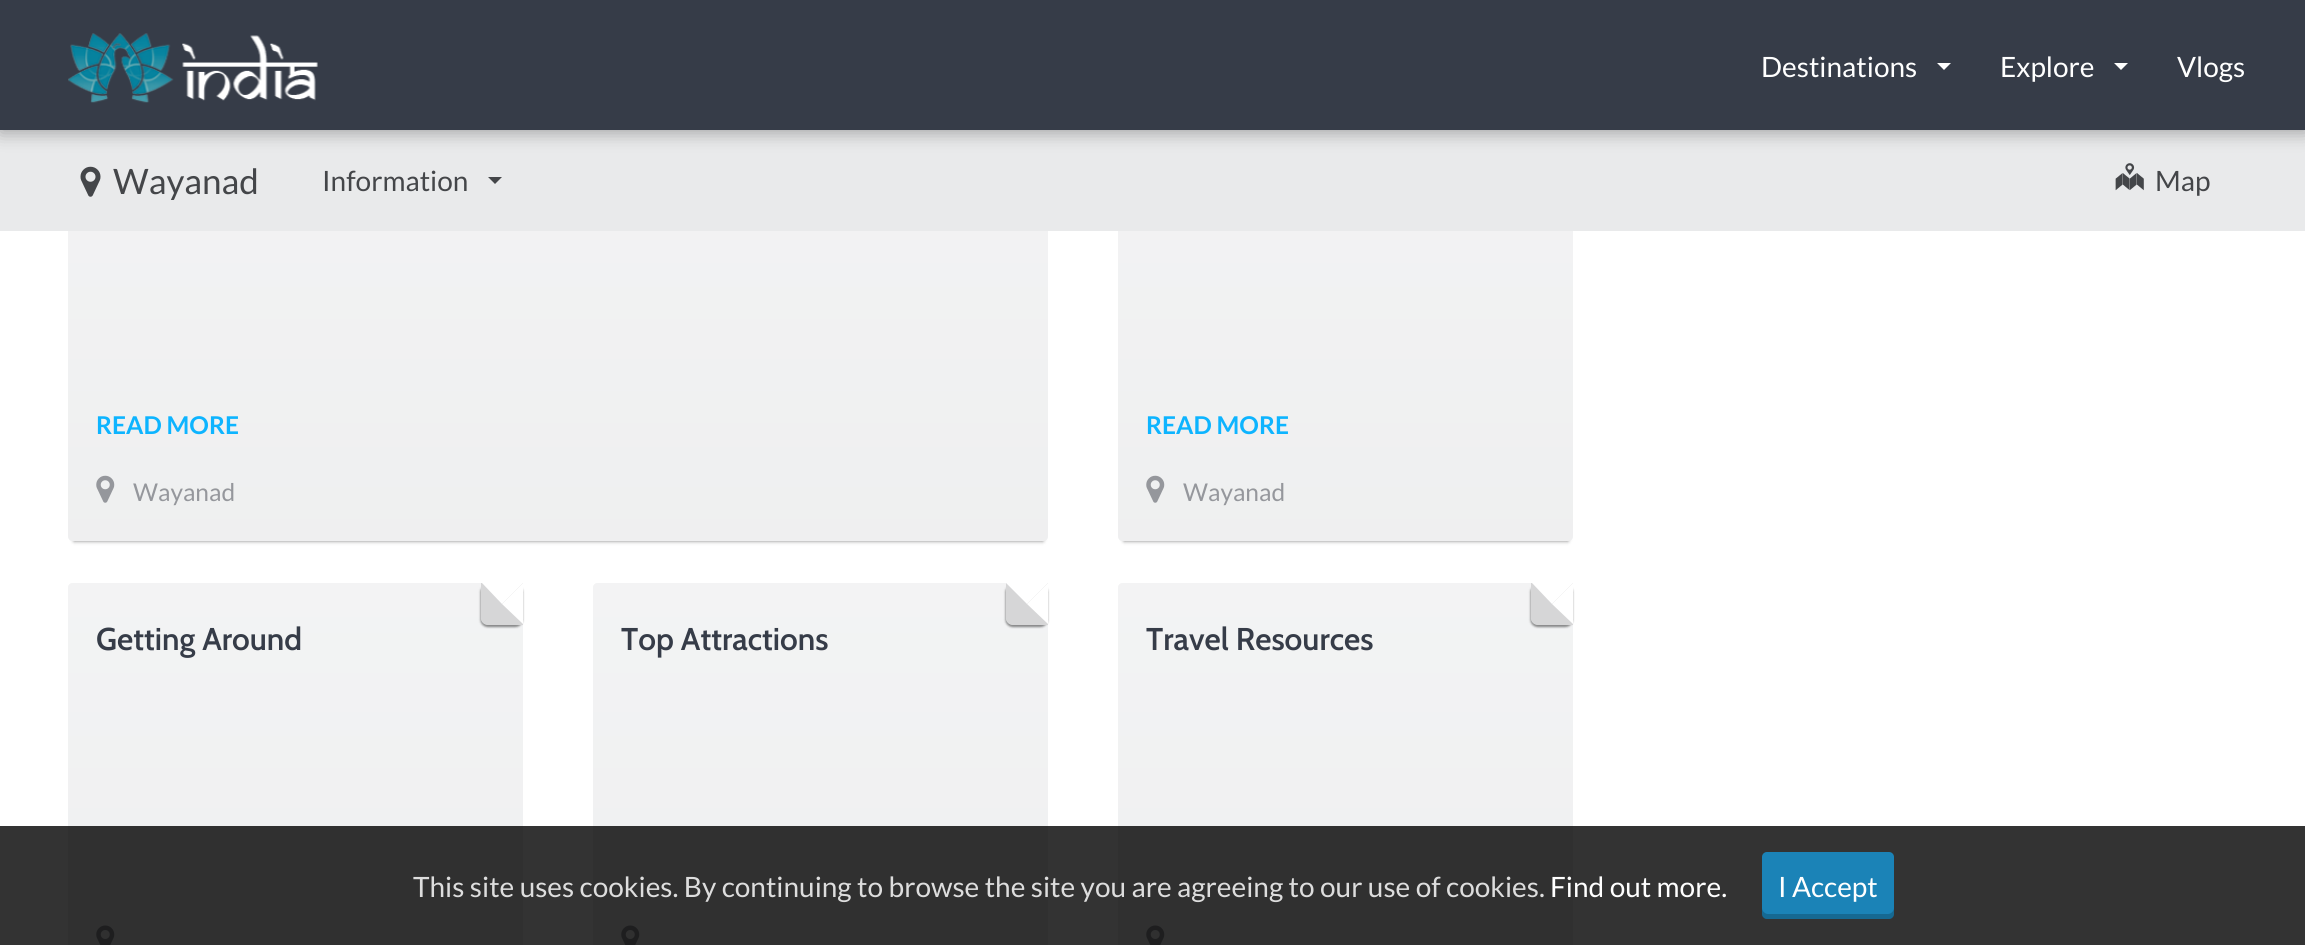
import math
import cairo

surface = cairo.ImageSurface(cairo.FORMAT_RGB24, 2305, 945)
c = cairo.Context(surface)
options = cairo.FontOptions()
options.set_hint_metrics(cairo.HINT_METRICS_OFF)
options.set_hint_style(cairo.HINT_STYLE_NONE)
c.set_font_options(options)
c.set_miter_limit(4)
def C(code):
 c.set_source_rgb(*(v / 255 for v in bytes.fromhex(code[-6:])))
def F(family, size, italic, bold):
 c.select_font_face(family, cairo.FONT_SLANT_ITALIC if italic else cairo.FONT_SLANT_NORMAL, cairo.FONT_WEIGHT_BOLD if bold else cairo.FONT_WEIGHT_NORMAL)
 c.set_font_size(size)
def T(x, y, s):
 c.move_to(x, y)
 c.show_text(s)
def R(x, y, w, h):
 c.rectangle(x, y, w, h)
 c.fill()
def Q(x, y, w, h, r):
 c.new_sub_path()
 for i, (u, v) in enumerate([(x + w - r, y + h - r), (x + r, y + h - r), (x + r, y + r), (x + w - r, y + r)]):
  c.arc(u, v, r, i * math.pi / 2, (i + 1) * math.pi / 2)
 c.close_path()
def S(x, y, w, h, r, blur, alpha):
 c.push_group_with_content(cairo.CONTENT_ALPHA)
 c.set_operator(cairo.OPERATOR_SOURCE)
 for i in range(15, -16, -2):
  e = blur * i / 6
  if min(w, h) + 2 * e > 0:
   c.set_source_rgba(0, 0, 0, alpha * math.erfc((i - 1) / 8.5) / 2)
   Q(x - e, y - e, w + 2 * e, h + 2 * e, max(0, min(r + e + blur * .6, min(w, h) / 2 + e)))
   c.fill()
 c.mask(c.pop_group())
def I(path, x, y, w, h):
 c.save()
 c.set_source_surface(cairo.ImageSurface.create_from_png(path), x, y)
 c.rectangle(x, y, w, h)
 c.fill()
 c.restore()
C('ffffff')
c.paint()
C('000000')
S(74,144,969,397,0,2,.5)
C('e9eaeb')
c.new_path()
c.move_to(73,133)
c.line_to(1048,133)
c.line_to(1048,536)
c.curve_to(1048,539,1046,541,1043,541)
c.line_to(73,541)
c.curve_to(70,541,68,539,68,536)
c.line_to(68,138)
c.curve_to(68,135,70,133,73,133)
c.close_path()
c.fill()
gradient = cairo.LinearGradient(558,133,558,541)
gradient.add_color_stop_rgba(0,1,1,1,.45)
gradient.add_color_stop_rgba(1,1,1,1,.25)
c.set_source(gradient)
c.new_path()
c.move_to(73,133)
c.line_to(1048,133)
c.line_to(1048,536)
c.curve_to(1048,539,1046,541,1043,541)
c.line_to(73,541)
c.curve_to(70,541,68,539,68,536)
c.line_to(68,138)
c.curve_to(68,135,70,133,73,133)
c.close_path()
c.fill()
C('000000')
S(1124,144,444,397,0,2,.5)
C('e9eaeb')
c.new_path()
c.move_to(1123,133)
c.line_to(1573,133)
c.line_to(1573,536)
c.curve_to(1573,539,1571,541,1568,541)
c.line_to(1123,541)
c.curve_to(1120,541,1118,539,1118,536)
c.line_to(1118,138)
c.curve_to(1118,135,1120,133,1123,133)
c.close_path()
c.fill()
gradient = cairo.LinearGradient(1346,133,1346,541)
gradient.add_color_stop_rgba(0,1,1,1,.45)
gradient.add_color_stop_rgba(1,1,1,1,.25)
c.set_source(gradient)
c.new_path()
c.move_to(1123,133)
c.line_to(1573,133)
c.line_to(1573,536)
c.curve_to(1573,539,1571,541,1568,541)
c.line_to(1123,541)
c.curve_to(1120,541,1118,539,1118,536)
c.line_to(1118,138)
c.curve_to(1118,135,1120,133,1123,133)
c.close_path()
c.fill()
C('e9eaeb')
R(0,130,2305,101)
C('000000')
S(0,-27,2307,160,0,9,.3)
C('363c48')
R(0,0,2305,130)
I('1.png',68,33,250,70)
F('Lato',28,0,0)
C('ffffff')
T(1761,77,'Destinations')
c.new_path()
c.move_to(1937,63)
c.line_to(1951,63)
c.line_to(1944,70)
c.close_path()
c.fill()
T(2000,77,'Explore')
c.new_path()
c.move_to(2114,63)
c.line_to(2128,63)
c.line_to(2121,70)
c.close_path()
c.fill()
T(2177,77,'Vlogs')
I('2.png',80,166,21,31)
F('Lato',35,0,0)
C('444649')
T(113,194,'Wayanad')
F('Lato',28,0,0)
T(322,191,'Information')
c.new_path()
c.move_to(488,177)
c.line_to(502,177)
c.line_to(495,184)
c.close_path()
c.fill()
I('3.png',2115,163,29,28)
T(2155,191,'Map')
F('Lato',24.5,0,1)
C('0db4ff')
T(96,434,'READ MORE')
I('4.png',96,475,19,28)
F('Lato',24.5,0,0)
C('95979c')
T(133,501,'Wayanad')
F('Lato',24.5,0,1)
C('0db4ff')
T(1146,434,'READ MORE')
I('4.png',1146,475,19,28)
F('Lato',24.5,0,0)
C('95979c')
T(1183,501,'Wayanad')
C('e9eaeb')
c.new_path()
c.move_to(73,583)
c.line_to(523,583)
c.line_to(523,945)
c.curve_to(523,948,521,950,518,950)
c.line_to(73,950)
c.curve_to(70,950,68,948,68,945)
c.line_to(68,588)
c.curve_to(68,585,70,583,73,583)
c.close_path()
c.fill()
gradient = cairo.LinearGradient(296,583,296,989)
gradient.add_color_stop_rgba(0,1,1,1,.45)
gradient.add_color_stop_rgba(1,1,1,1,.25)
c.set_source(gradient)
c.new_path()
c.move_to(73,583)
c.line_to(523,583)
c.line_to(523,945)
c.curve_to(523,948,521,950,518,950)
c.line_to(73,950)
c.curve_to(70,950,68,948,68,945)
c.line_to(68,588)
c.curve_to(68,585,70,583,73,583)
c.close_path()
c.fill()
c.save()
c.set_fill_rule(cairo.FILL_RULE_EVEN_ODD)
c.new_path()
c.move_to(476,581)
c.line_to(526,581)
c.line_to(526,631)
c.line_to(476,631)
c.close_path()
c.move_to(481,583)
c.line_to(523,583)
c.line_to(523,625)
c.line_to(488,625)
c.curve_to(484,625,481,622,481,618)
c.close_path()
c.clip()
C('000000')
S(480,585,42,42,7,1,.2)
c.restore()
c.save()
c.set_fill_rule(cairo.FILL_RULE_EVEN_ODD)
c.new_path()
c.move_to(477,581)
c.line_to(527,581)
c.line_to(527,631)
c.line_to(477,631)
c.close_path()
c.move_to(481,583)
c.line_to(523,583)
c.line_to(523,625)
c.line_to(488,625)
c.curve_to(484,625,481,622,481,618)
c.close_path()
c.clip()
C('000000')
S(481,585,42,42,7,1,.3)
c.restore()
c.set_source_rgba(0,0,0,0.12)
c.new_path()
c.move_to(481,583)
c.line_to(523,583)
c.line_to(523,625)
c.line_to(488,625)
c.curve_to(484,625,481,622,481,618)
c.close_path()
c.fill()
C('ffffff')
c.new_path()
c.move_to(523,583)
c.line_to(482,583)
c.line_to(502,604)
c.close_path()
c.fill()
c.new_path()
c.move_to(523,624)
c.line_to(502,604)
c.line_to(523,583)
c.close_path()
c.fill()
F('Cabin SemiBold',31.5,0,0)
C('363c48')
T(96,650,'Getting Around')
I('5.png',96,925,19,20)
C('e9eaeb')
c.new_path()
c.move_to(598,583)
c.line_to(1048,583)
c.line_to(1048,945)
c.curve_to(1048,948,1046,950,1043,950)
c.line_to(598,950)
c.curve_to(595,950,593,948,593,945)
c.line_to(593,588)
c.curve_to(593,585,595,583,598,583)
c.close_path()
c.fill()
gradient = cairo.LinearGradient(821,583,821,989)
gradient.add_color_stop_rgba(0,1,1,1,.45)
gradient.add_color_stop_rgba(1,1,1,1,.25)
c.set_source(gradient)
c.new_path()
c.move_to(598,583)
c.line_to(1048,583)
c.line_to(1048,945)
c.curve_to(1048,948,1046,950,1043,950)
c.line_to(598,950)
c.curve_to(595,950,593,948,593,945)
c.line_to(593,588)
c.curve_to(593,585,595,583,598,583)
c.close_path()
c.fill()
c.save()
c.set_fill_rule(cairo.FILL_RULE_EVEN_ODD)
c.new_path()
c.move_to(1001,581)
c.line_to(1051,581)
c.line_to(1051,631)
c.line_to(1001,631)
c.close_path()
c.move_to(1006,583)
c.line_to(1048,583)
c.line_to(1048,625)
c.line_to(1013,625)
c.curve_to(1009,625,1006,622,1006,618)
c.close_path()
c.clip()
C('000000')
S(1005,585,42,42,7,1,.2)
c.restore()
c.save()
c.set_fill_rule(cairo.FILL_RULE_EVEN_ODD)
c.new_path()
c.move_to(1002,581)
c.line_to(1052,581)
c.line_to(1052,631)
c.line_to(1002,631)
c.close_path()
c.move_to(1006,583)
c.line_to(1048,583)
c.line_to(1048,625)
c.line_to(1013,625)
c.curve_to(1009,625,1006,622,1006,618)
c.close_path()
c.clip()
C('000000')
S(1006,585,42,42,7,1,.3)
c.restore()
c.set_source_rgba(0,0,0,0.12)
c.new_path()
c.move_to(1006,583)
c.line_to(1048,583)
c.line_to(1048,625)
c.line_to(1013,625)
c.curve_to(1009,625,1006,622,1006,618)
c.close_path()
c.fill()
C('ffffff')
c.new_path()
c.move_to(1048,583)
c.line_to(1006,583)
c.line_to(1027,604)
c.close_path()
c.fill()
c.new_path()
c.move_to(1048,624)
c.line_to(1027,604)
c.line_to(1048,583)
c.close_path()
c.fill()
C('363c48')
T(621,650,'Top Attractions')
I('5.png',621,925,19,20)
C('e9eaeb')
c.new_path()
c.move_to(1123,583)
c.line_to(1573,583)
c.line_to(1573,945)
c.curve_to(1573,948,1571,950,1568,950)
c.line_to(1123,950)
c.curve_to(1120,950,1118,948,1118,945)
c.line_to(1118,588)
c.curve_to(1118,585,1120,583,1123,583)
c.close_path()
c.fill()
gradient = cairo.LinearGradient(1346,583,1346,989)
gradient.add_color_stop_rgba(0,1,1,1,.45)
gradient.add_color_stop_rgba(1,1,1,1,.25)
c.set_source(gradient)
c.new_path()
c.move_to(1123,583)
c.line_to(1573,583)
c.line_to(1573,945)
c.curve_to(1573,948,1571,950,1568,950)
c.line_to(1123,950)
c.curve_to(1120,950,1118,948,1118,945)
c.line_to(1118,588)
c.curve_to(1118,585,1120,583,1123,583)
c.close_path()
c.fill()
c.save()
c.set_fill_rule(cairo.FILL_RULE_EVEN_ODD)
c.new_path()
c.move_to(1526,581)
c.line_to(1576,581)
c.line_to(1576,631)
c.line_to(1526,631)
c.close_path()
c.move_to(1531,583)
c.line_to(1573,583)
c.line_to(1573,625)
c.line_to(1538,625)
c.curve_to(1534,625,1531,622,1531,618)
c.close_path()
c.clip()
C('000000')
S(1530,585,42,42,7,1,.2)
c.restore()
c.save()
c.set_fill_rule(cairo.FILL_RULE_EVEN_ODD)
c.new_path()
c.move_to(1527,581)
c.line_to(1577,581)
c.line_to(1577,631)
c.line_to(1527,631)
c.close_path()
c.move_to(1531,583)
c.line_to(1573,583)
c.line_to(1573,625)
c.line_to(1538,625)
c.curve_to(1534,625,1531,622,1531,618)
c.close_path()
c.clip()
C('000000')
S(1531,585,42,42,7,1,.3)
c.restore()
c.set_source_rgba(0,0,0,0.12)
c.new_path()
c.move_to(1531,583)
c.line_to(1573,583)
c.line_to(1573,625)
c.line_to(1538,625)
c.curve_to(1534,625,1531,622,1531,618)
c.close_path()
c.fill()
C('ffffff')
c.new_path()
c.move_to(1573,583)
c.line_to(1532,583)
c.line_to(1552,604)
c.close_path()
c.fill()
c.new_path()
c.move_to(1573,624)
c.line_to(1552,604)
c.line_to(1573,583)
c.close_path()
c.fill()
C('363c48')
T(1146,650,'Travel Resources')
I('5.png',1146,925,19,20)
c.set_source_rgba(0,0,0,0.8)
R(0,826,2305,119)
F('Lato',28,0,0)
C('dddddd')
T(413,897,'This site uses cookies. By continuing to browse the site you are agreeing to our use of cookies.')
C('ffffff')
T(1550,897,'Find out more.')
C('1b83b7')
Q(1762,852,132,67,5)
c.fill()
c.set_source_rgba(0,0,0,0.2)
c.new_path()
c.move_to(1762,908)
c.line_to(1762,914)
c.curve_to(1762,917,1764,919,1767,919)
c.line_to(1889,919)
c.curve_to(1892,919,1894,917,1894,914)
c.line_to(1894,908)
c.curve_to(1894,911,1891,914,1888,914)
c.line_to(1768,914)
c.curve_to(1765,914,1762,911,1762,908)
c.close_path()
c.fill()
C('ffffff')
T(1778,897,'I Accept')
surface.write_to_png('o.png')
